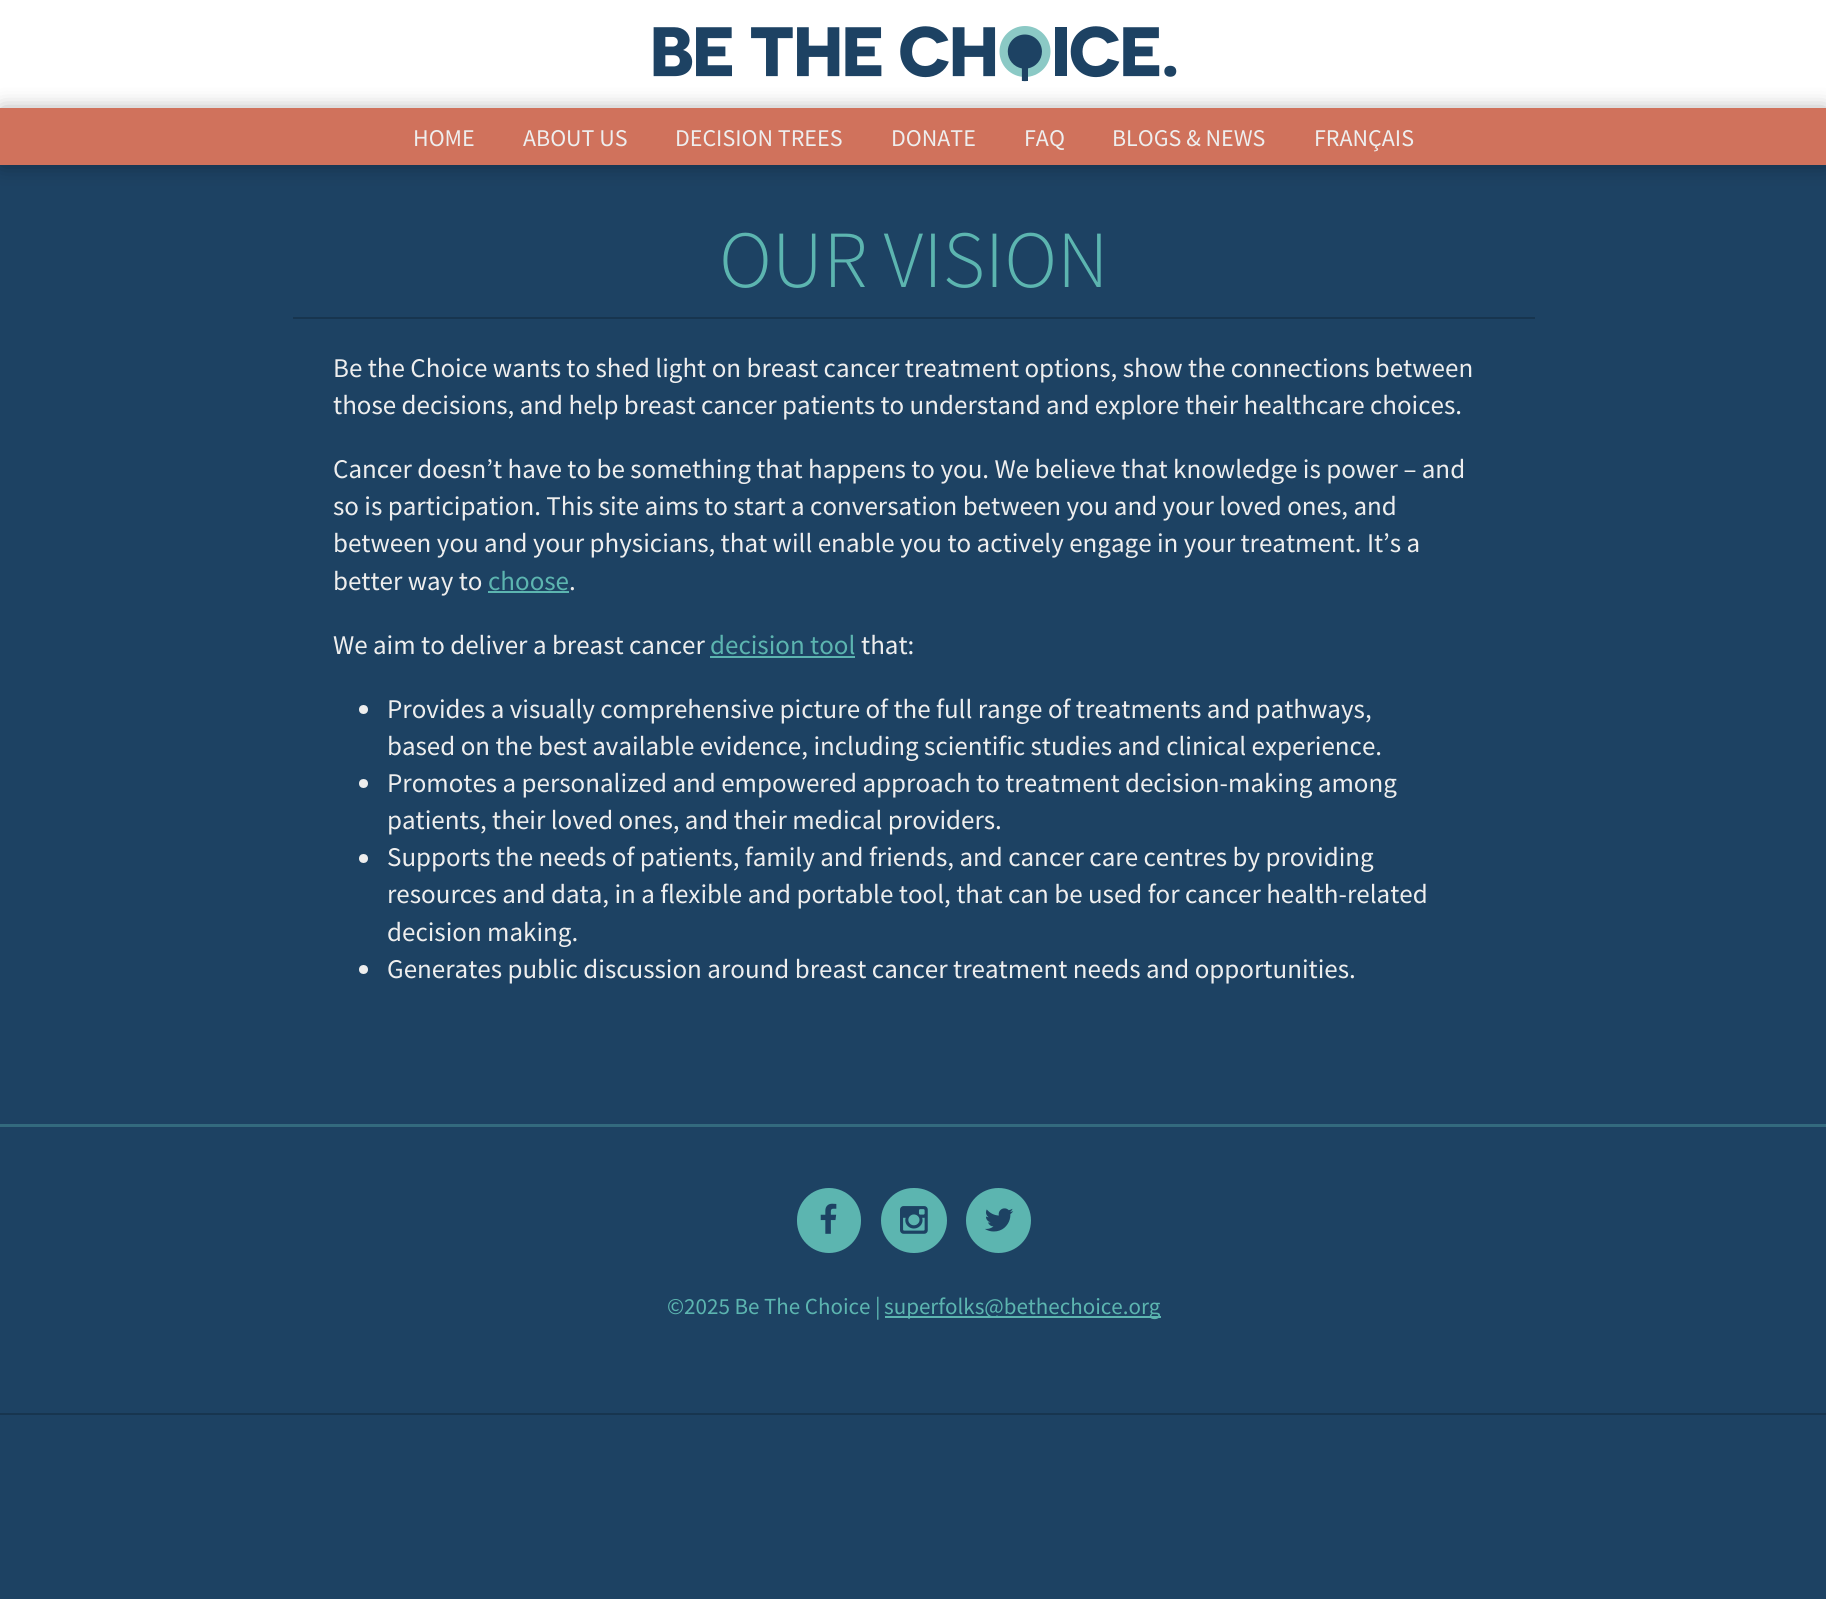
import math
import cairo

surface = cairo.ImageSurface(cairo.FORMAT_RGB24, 1826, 1599)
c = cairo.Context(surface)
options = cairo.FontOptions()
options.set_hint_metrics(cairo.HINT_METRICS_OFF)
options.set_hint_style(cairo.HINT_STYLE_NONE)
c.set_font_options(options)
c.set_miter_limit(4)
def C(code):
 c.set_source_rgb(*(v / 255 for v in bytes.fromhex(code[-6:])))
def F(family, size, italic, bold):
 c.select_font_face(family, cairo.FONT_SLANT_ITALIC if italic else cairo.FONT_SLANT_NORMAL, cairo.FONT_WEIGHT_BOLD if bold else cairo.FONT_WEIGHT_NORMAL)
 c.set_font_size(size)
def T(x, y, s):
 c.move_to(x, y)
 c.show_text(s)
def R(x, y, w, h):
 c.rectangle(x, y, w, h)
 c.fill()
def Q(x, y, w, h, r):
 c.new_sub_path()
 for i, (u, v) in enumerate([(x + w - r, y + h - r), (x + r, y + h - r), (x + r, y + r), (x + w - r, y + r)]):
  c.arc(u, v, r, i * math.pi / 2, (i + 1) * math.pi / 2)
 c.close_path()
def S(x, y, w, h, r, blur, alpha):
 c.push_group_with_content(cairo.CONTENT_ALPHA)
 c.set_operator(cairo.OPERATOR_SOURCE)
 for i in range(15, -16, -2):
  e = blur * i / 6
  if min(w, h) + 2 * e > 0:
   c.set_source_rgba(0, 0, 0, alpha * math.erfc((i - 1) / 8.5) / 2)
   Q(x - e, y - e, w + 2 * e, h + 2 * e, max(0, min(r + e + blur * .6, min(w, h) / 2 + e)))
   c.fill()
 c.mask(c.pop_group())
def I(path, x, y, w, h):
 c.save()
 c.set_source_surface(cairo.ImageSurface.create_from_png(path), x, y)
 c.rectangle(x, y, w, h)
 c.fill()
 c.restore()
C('1d4263')
c.paint()
C('17354f')
R(0,1413,1826,2)
C('ffffff')
R(0,0,1826,108)
I('1.png',653,26,524,56)
C('000000')
S(2,110,1824,54,0,10.5,.35)
C('d0725c')
R(0,108,1826,57)
F('Source Sans Pro',24,0,0)
C('eeeeee')
T(413,146,'HOME')
T(523,146,'ABOUT US')
T(675,146,'DECISION TREES')
T(891,146,'DONATE')
T(1024,146,'FAQ')
T(1112,146,'BLOGS & NEWS')
T(1314,146,'FRANÇAIS')
C('17354f')
R(293,317,1242,2)
F('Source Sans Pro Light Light',81,0,0)
C('5cb5b0')
T(719,287,'OUR VISION')
F('Source Sans Pro',27,0,0)
C('eeeeee')
T(333,377,'Be the Choice wants to shed light on breast cancer treatment options, show the connections between')
T(333,414,'those decisions, and help breast cancer patients to understand and explore their healthcare choices.')
T(333,478,'Cancer doesn’t have to be something that happens to you. We believe that knowledge is power – and')
T(333,515,'so is participation. This site aims to start a conversation between you and your loved ones, and')
T(333,552,'between you and your physicians, that will enable you to actively engage in your treatment. It’s a')
T(333,590,'better way to')
C('5cb5b0')
T(488,590,'choose')
R(488,591,81,2)
C('eeeeee')
T(569,590,'.')
T(333,654,'We aim to deliver a breast cancer')
C('5cb5b0')
T(710,654,'decision tool')
R(710,656,145,2)
C('eeeeee')
T(861,654,'that:')
c.new_path()
c.arc(363.5,709.5,4.5,0,2 * math.pi)
c.fill()
T(387,718,'Provides a visually comprehensive picture of the full range of treatments and pathways,')
T(387,755,'based on the best available evidence, including scientific studies and clinical experience.')
c.new_path()
c.arc(363.5,783.5,4.5,0,2 * math.pi)
c.fill()
T(387,792,'Promotes a personalized and empowered approach to treatment decision-making among')
T(387,829,'patients, their loved ones, and their medical providers.')
c.new_path()
c.arc(363.5,858.5,4.5,0,2 * math.pi)
c.fill()
T(387,866,'Supports the needs of patients, family and friends, and cancer care centres by providing')
T(387,903,'resources and data, in a flexible and portable tool, that can be used for cancer health-related')
T(387,941,'decision making.')
c.new_path()
c.arc(363.5,969.5,4.5,0,2 * math.pi)
c.fill()
T(387,978,'Generates public discussion around breast cancer treatment needs and opportunities.')
C('336a7e')
R(0,1124,1826,3)
C('5cb5b0')
Q(797,1188,64,65,32)
c.fill()
I('2.png',820,1203,17,31)
Q(881,1188,66,65,32.5)
c.fill()
I('3.png',900,1206,28,28)
c.arc(998.5,1220.5,32.5,0,2 * math.pi)
c.fill()
I('4.png',985,1208,29,24)
F('Source Sans Pro',23,0,0)
T(667,1314,'©2025 Be The Choice |')
R(885,1316,276,2)
T(884,1314,'superfolks@bethechoice.org')
surface.write_to_png('o.png')
